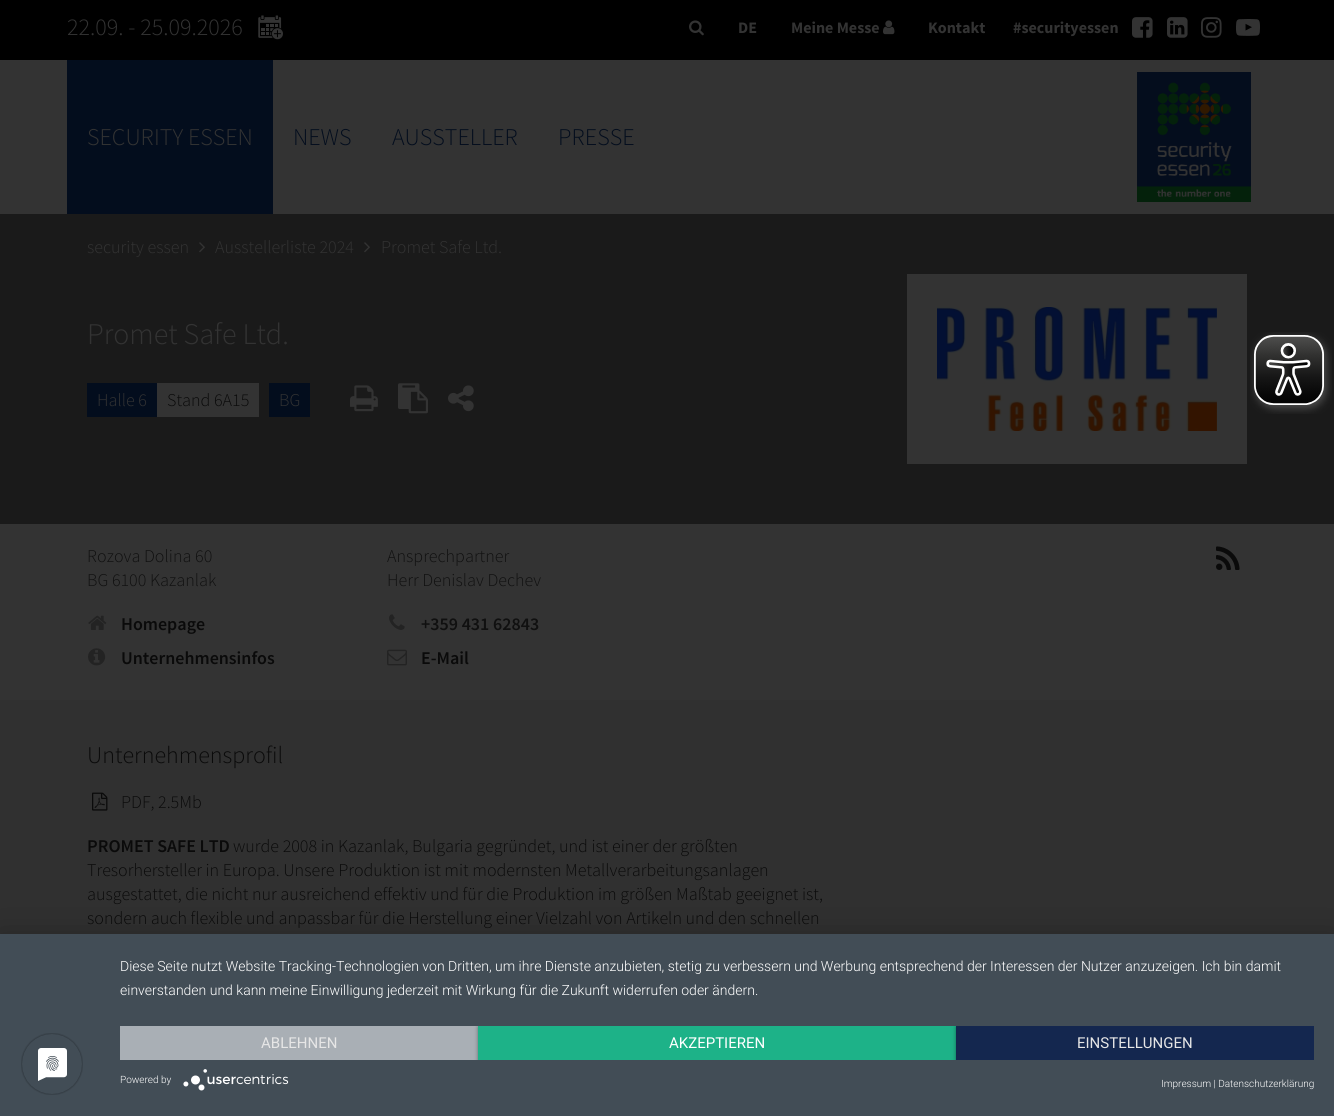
import math
import cairo

surface = cairo.ImageSurface(cairo.FORMAT_RGB24, 1334, 1116)
c = cairo.Context(surface)
options = cairo.FontOptions()
options.set_hint_metrics(cairo.HINT_METRICS_OFF)
options.set_hint_style(cairo.HINT_STYLE_NONE)
c.set_font_options(options)
c.set_miter_limit(4)
def C(code):
 c.set_source_rgb(*(v / 255 for v in bytes.fromhex(code[-6:])))
def F(family, size, italic, bold):
 c.select_font_face(family, cairo.FONT_SLANT_ITALIC if italic else cairo.FONT_SLANT_NORMAL, cairo.FONT_WEIGHT_BOLD if bold else cairo.FONT_WEIGHT_NORMAL)
 c.set_font_size(size)
def T(x, y, s):
 c.move_to(x, y)
 c.show_text(s)
def R(x, y, w, h):
 c.rectangle(x, y, w, h)
 c.fill()
def Q(x, y, w, h, r):
 c.new_sub_path()
 for i, (u, v) in enumerate([(x + w - r, y + h - r), (x + r, y + h - r), (x + r, y + r), (x + w - r, y + r)]):
  c.arc(u, v, r, i * math.pi / 2, (i + 1) * math.pi / 2)
 c.close_path()
def S(x, y, w, h, r, blur, alpha):
 c.push_group_with_content(cairo.CONTENT_ALPHA)
 c.set_operator(cairo.OPERATOR_SOURCE)
 for i in range(15, -16, -2):
  e = blur * i / 6
  if min(w, h) + 2 * e > 0:
   c.set_source_rgba(0, 0, 0, alpha * math.erfc((i - 1) / 8.5) / 2)
   Q(x - e, y - e, w + 2 * e, h + 2 * e, max(0, min(r + e + blur * .6, min(w, h) / 2 + e)))
   c.fill()
 c.mask(c.pop_group())
def I(path, x, y, w, h):
 c.save()
 c.set_source_surface(cairo.ImageSurface.create_from_png(path), x, y)
 c.rectangle(x, y, w, h)
 c.fill()
 c.restore()
C('333333')
c.paint()
C('000000')
R(0,0,1334,60)
F('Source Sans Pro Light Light',24,0,0)
C('333333')
T(67,35,'22.09. - 25.09.2026')
I('1.png',258,15,25,25)
I('2.png',689,20,15,16)
F('Source Sans Pro',16,0,1)
T(738,33,'DE')
T(791,33,'Meine Messe')
I('3.png',883,20,12,15)
T(928,33,'Kontakt')
T(1013,33,'#securityessen')
I('4.png',1132,17,21,21)
I('5.png',1167,17,21,21)
I('6.png',1201,17,21,21)
I('7.png',1236,19,24,17)
C('030d1d')
R(67,60,206,154)
F('Source Sans Pro Light Light',24,0,0)
C('333333')
T(87,145,'SECURITY ESSEN')
C('030d1d')
T(293,145,'NEWS')
T(392,145,'AUSSTELLER')
T(558,145,'PRESSE')
I('8.png',1137,72,114,130)
C('1a1a1a')
R(0,214,1334,310)
F('Source Sans Pro Light Light',18,0,0)
C('333333')
T(87,253,'security essen')
I('9.png',199,242,6,11)
T(215,253,'Ausstellerliste 2024')
I('9.png',364,242,6,11)
T(381,253,'Promet Safe Ltd.')
F('Source Sans Pro Light Light',30,0,0)
T(87,344,'Promet Safe Ltd.')
C('030d1d')
R(87,383,70,34)
F('Source Sans Pro Light Light',18,0,0)
C('333333')
T(97,406,'Halle 6')
R(157,383,102,34)
C('0a0a0a')
T(167,406,'Stand 6A15')
C('030d1d')
R(269,383,41,34)
C('333333')
T(279,406,'BG')
I('10.png',350,385,28,27)
I('11.png',398,383,30,31)
I('12.png',448,385,26,27)
R(907,274,340,190)
I('13.png',937,307,280,124)
I('14.png',1250,332,82,82)
C('101010')
T(87,562,'Rozova Dolina 60')
T(87,586,'BG 6100 Kazanlak')
I('15.png',88,615,19,15)
F('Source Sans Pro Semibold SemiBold',18,0,0)
C('0a0a0a')
T(121,630,'Homepage')
I('16.png',88,648,18,18)
T(121,664,'Unternehmensinfos')
F('Source Sans Pro Light Light',18,0,0)
C('101010')
T(387,562,'Ansprechpartner')
T(387,586,'Herr Denislav Dechev')
I('17.png',389,614,16,16)
F('Source Sans Pro Semibold SemiBold',18,0,0)
T(421,630,'+359 431 62843')
I('18.png',387,649,20,17)
C('0a0a0a')
T(421,664,'E-Mail')
I('19.png',1216,546,24,24)
C('303030')
R(0,700,1334,234)
F('Source Sans Pro Light Light',24,0,0)
C('0a0a0a')
T(87,763,'Unternehmensprofil')
I('20.png',92,792,16,19)
F('Source Sans Pro Light Light',18,0,0)
T(121,808,'PDF, 2.5Mb')
F('Source Sans Pro Semibold SemiBold',18,0,0)
T(87,852,'PROMET SAFE LTD')
F('Source Sans Pro Light Light',18,0,0)
T(233,852,'wurde 2008 in Kazanlak, Bulgaria gegründet, und ist einer der größten')
T(87,876,'Tresorhersteller in Europa. Unsere Produktion ist mit modernsten Metallverarbeitungsanlagen')
T(87,900,'ausgestattet, die nicht nur ausreichend effektiv und für die Produktion im größen Maßtab geeignet ist,')
T(87,924,'sondern auch flexible und anpassbar für die Herstellung einer Vielzahl von Artikeln und den schnellen')
C('000000')
S(0,940,1334,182,0,18,.3)
C('424d56')
R(0,934,1334,182)
I('21.png',21,1033,62,62)
F('Roboto Light',14,0,0)
C('ffffff')
T(120,971,'Diese Seite nutzt Website Tracking-Technologien von Dritten, um ihre Dienste anzubieten, stetig zu verbessern und Werbung entsprechend der Interessen der Nutzer anzuzeigen. Ich bin damit')
T(120,995,'einverstanden und kann meine Einwilligung jederzeit mit Wirkung für die Zukunft widerrufen oder ändern.')
C('a9afb5')
R(120,1026,358,34)
F('Roboto',15,0,0)
C('e6e6e6')
T(261,1048,'ABLEHNEN')
c.save()
c.rectangle(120,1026,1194,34)
c.clip()
C('000000')
S(478,1027,478,34,0,2,.4)
c.restore()
C('1db288')
R(478,1026,478,34)
C('ffffff')
T(669,1048,'AKZEPTIEREN')
c.save()
c.rectangle(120,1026,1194,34)
c.clip()
C('000000')
S(956,1027,358,34,0,2,.4)
c.restore()
C('14274f')
R(956,1026,358,34)
C('e6e6e6')
T(1077,1048,'EINSTELLUNGEN')
F('Roboto Light',10,0,0)
C('ffffff')
T(120,1083,'Powered by')
I('22.png',183,1069,106,22)
T(1161,1087,'Impressum | Datenschutzerklärung')
surface.write_to_png('o.png')
